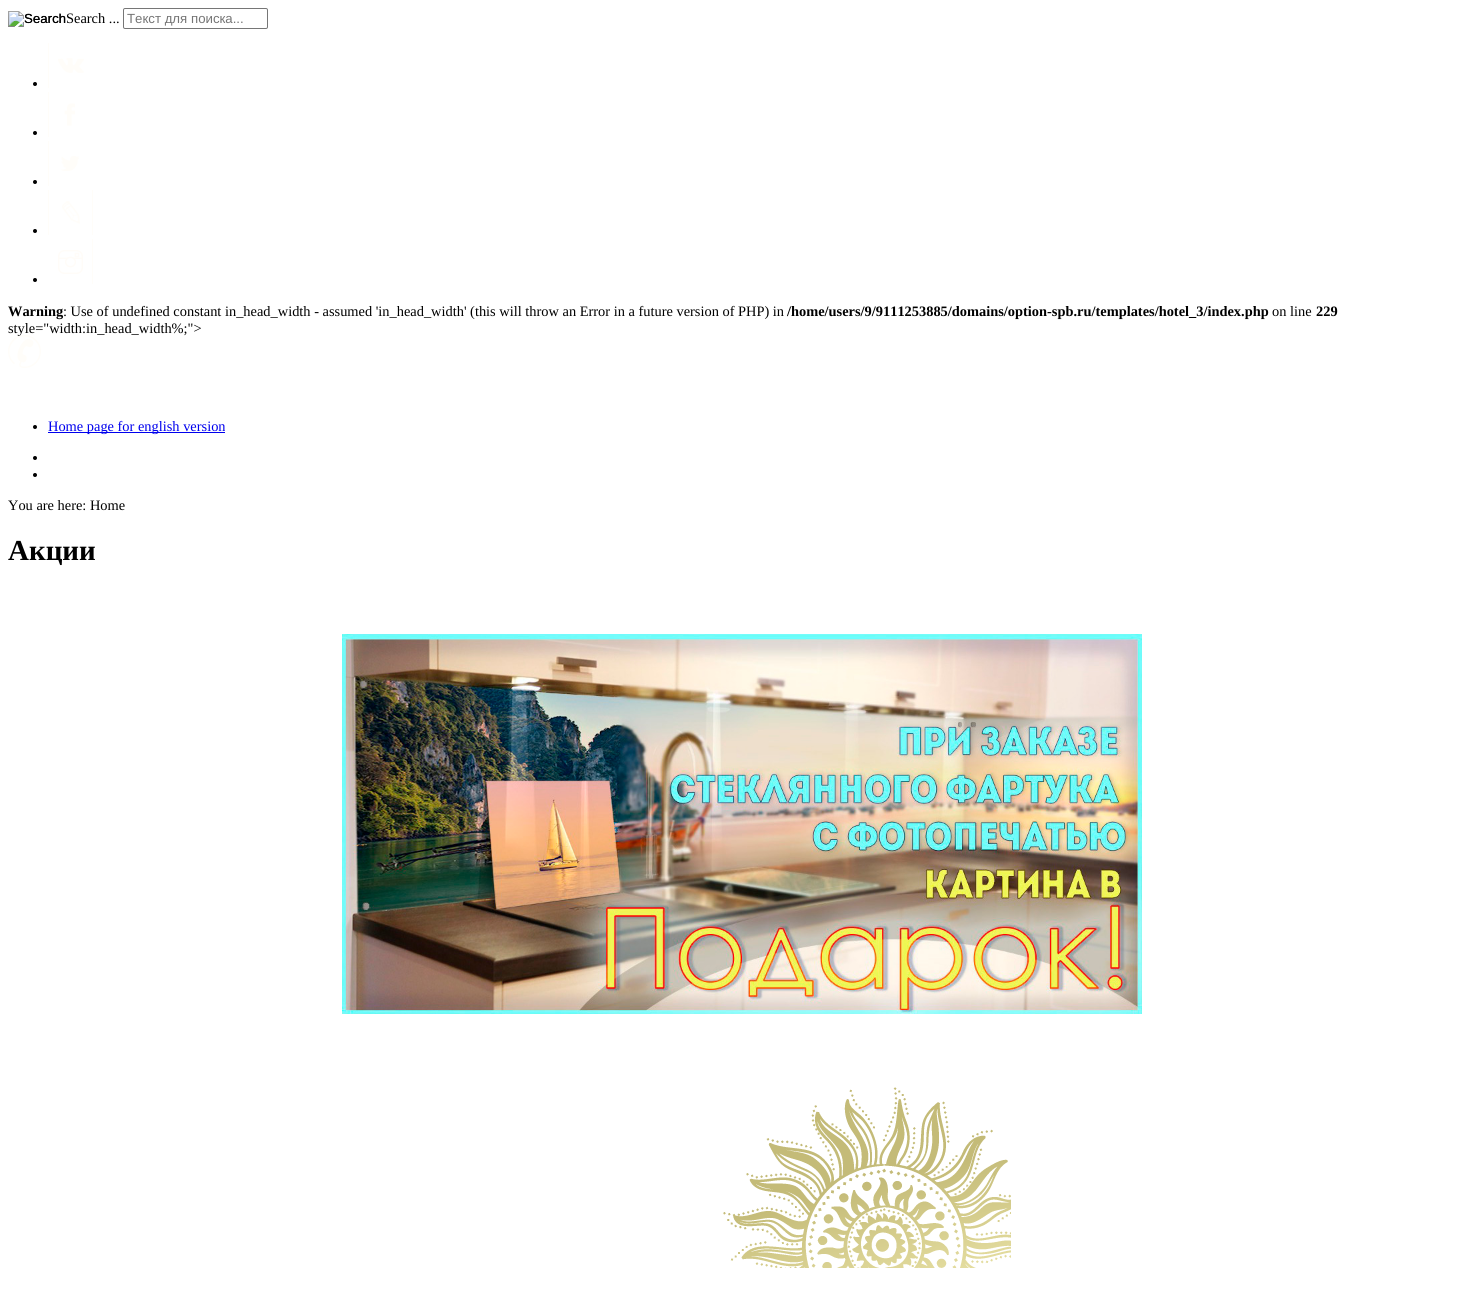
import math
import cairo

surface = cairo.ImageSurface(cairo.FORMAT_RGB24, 1480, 1292)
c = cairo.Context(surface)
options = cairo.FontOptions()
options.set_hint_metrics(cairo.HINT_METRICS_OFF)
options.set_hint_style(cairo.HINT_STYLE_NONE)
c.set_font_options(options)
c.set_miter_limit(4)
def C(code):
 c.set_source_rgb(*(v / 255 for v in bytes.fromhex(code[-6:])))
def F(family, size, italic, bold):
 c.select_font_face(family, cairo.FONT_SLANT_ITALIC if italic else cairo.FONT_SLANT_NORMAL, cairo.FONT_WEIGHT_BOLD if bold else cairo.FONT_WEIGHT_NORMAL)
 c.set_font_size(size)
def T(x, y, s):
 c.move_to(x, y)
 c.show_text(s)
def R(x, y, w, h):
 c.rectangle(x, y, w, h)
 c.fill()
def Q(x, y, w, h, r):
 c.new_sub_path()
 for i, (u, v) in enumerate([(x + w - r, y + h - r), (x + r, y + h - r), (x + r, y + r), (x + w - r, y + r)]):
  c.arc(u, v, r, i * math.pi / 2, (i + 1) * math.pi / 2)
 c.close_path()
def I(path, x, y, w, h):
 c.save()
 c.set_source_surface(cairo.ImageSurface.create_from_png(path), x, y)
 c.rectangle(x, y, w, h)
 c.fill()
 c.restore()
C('ffffff')
c.paint()
I('1.png',8,11,58,16)
F('Liberation Sans',13.25,0,0)
C('000000')
T(24,23,'Search')
F('Liberation Serif',14.4,0,0)
T(66,23,'Search ...')
Q(123.5,8.5,144,20,1.5)
C('767676')
c.set_line_width(1)
c.stroke()
F('Liberation Sans',13.25,0,0)
C('757575')
T(127,23,'Текст для поиска...')
C('000000')
c.new_path()
c.arc(35,84,2,0,2 * math.pi)
c.fill()
I('2.png',48,43,36,45)
c.arc(35,133,2,0,2 * math.pi)
c.fill()
I('3.png',48,92,27,45)
c.arc(35,182,2,0,2 * math.pi)
c.fill()
I('4.png',48,141,31,45)
c.arc(35,231,2,0,2 * math.pi)
c.fill()
I('5.png',48,190,45,45)
c.arc(35,280,2,0,2 * math.pi)
c.fill()
I('6.png',58,239,35,45)
F('Liberation Serif',14.4,0,1)
T(8,316,'Warning')
F('Liberation Serif',14.4,0,0)
T(63,316,': Use of undefined constant in_head_width - assumed \'in_head_width\' (this will throw an Error in a future version of PHP) in')
F('Liberation Serif',14.4,0,1)
T(787,316,'/home/users/9/9111253885/domains/option-spb.ru/templates/hotel_3/index.php')
F('Liberation Serif',14.4,0,0)
T(1272,316,'on line')
F('Liberation Serif',14.4,0,1)
T(1316,316,'229')
F('Liberation Serif',14.4,0,0)
T(8,333,'style="width:in_head_width%;">')
I('7.png',8,335,33,33)
c.arc(35,427,2,0,2 * math.pi)
c.fill()
C('0000ee')
R(48,432,177,1)
T(48,431,'Home page for english version')
C('000000')
c.new_path()
c.arc(35,458,2,0,2 * math.pi)
c.fill()
c.arc(35,475,2,0,2 * math.pi)
c.fill()
T(8,510,'You are here: Home')
F('Liberation Serif',29,0,1)
T(8,560,'Акции')
I('8.png',342,634,800,380)
I('9.png',723,1087,288,181)
surface.write_to_png('o.png')
